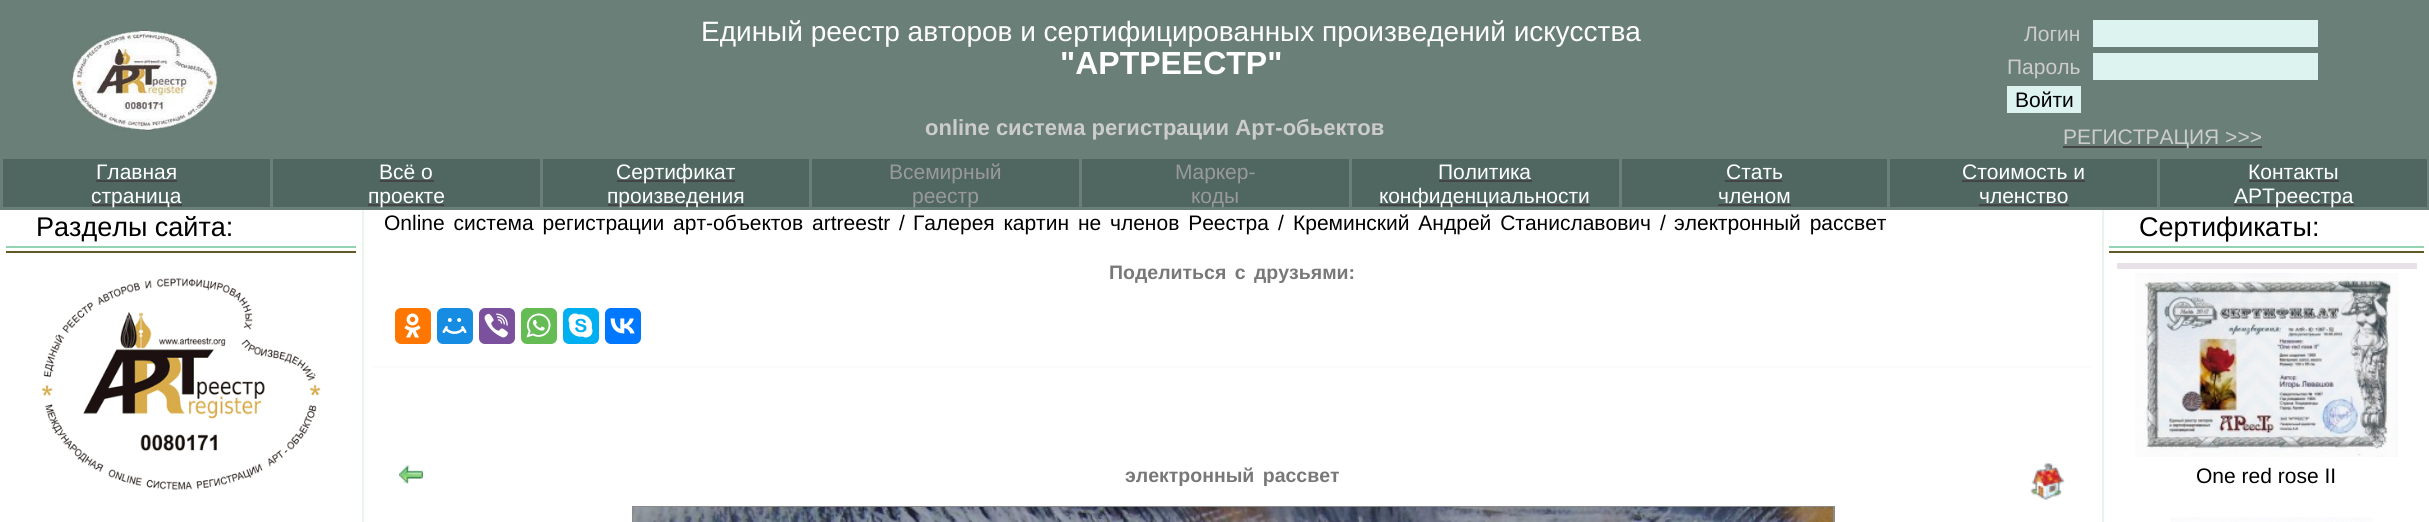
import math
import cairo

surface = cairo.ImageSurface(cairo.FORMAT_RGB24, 2429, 522)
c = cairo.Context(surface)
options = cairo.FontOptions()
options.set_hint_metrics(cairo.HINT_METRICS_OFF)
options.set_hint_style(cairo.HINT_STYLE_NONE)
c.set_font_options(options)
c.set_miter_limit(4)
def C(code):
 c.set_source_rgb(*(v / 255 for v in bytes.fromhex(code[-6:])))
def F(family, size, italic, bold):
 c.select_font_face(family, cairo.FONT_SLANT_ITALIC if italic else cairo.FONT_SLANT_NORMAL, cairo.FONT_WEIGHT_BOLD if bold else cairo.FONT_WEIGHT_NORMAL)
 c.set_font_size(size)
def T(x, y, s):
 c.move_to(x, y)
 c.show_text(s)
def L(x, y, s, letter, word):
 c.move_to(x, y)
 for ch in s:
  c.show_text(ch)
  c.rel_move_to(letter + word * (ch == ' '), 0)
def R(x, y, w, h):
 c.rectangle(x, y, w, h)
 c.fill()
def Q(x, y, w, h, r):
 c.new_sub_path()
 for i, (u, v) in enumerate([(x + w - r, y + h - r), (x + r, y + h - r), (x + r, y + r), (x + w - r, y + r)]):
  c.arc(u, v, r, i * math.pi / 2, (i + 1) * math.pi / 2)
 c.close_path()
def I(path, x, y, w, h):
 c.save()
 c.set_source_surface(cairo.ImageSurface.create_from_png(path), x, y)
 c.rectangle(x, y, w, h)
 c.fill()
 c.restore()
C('ffffff')
c.paint()
C('6b7f79')
R(0,0,2429,210)
I('1.png',68,30,154,101)
F('Liberation Sans',28,0,0)
C('ffffff')
T(701,41,'Единый реестр авторов и сертифицированных произведений искусства')
F('Liberation Sans',32,0,1)
T(1060,74,'"АРТРЕЕСТР"')
F('Liberation Sans',22,0,1)
C('cccccc')
T(925,135,'online система регистрации Арт-обьектов')
F('Liberation Sans',21,0,0)
T(2024,41,'Логин')
C('dcf3f0')
R(2093,20,225,27)
C('cccccc')
T(2007,74,'Пароль')
C('dcf3f0')
R(2093,53,225,27)
R(2007,86,74,27)
C('000000')
T(2015,107,'Войти')
C('444444')
R(2063,146,199,2)
C('cccccc')
T(2063,144,'РЕГИСТРАЦИЯ >>>')
C('4f6760')
R(3,159,267,48)
C('ffffff')
T(96,179,'Главная')
C('444444')
R(96,180,81,2)
R(92,204,90,2)
C('ffffff')
T(91,203,'страница')
C('4f6760')
R(273,159,267,48)
C('ffffff')
T(379,179,'Всё о')
C('444444')
R(380,180,54,2)
R(368,204,76,2)
C('ffffff')
T(368,203,'проекте')
C('4f6760')
R(543,159,266,48)
C('444444')
R(617,180,118,2)
C('ffffff')
T(616,179,'Сертификат')
C('444444')
R(608,204,136,2)
C('ffffff')
T(607,203,'произведения')
C('4f6760')
R(812,159,267,48)
C('999999')
T(889,179,'Всемирный')
T(912,203,'реестр')
C('4f6760')
R(1082,159,267,48)
C('999999')
T(1175,179,'Маркер-')
T(1191,203,'коды')
C('4f6760')
R(1352,159,267,48)
C('ffffff')
T(1438,179,'Политика')
C('444444')
R(1439,180,93,2)
R(1379,204,211,2)
C('ffffff')
T(1379,203,'конфиденциальности')
C('4f6760')
R(1622,159,265,48)
C('ffffff')
T(1726,179,'Стать')
C('444444')
R(1725,180,57,2)
C('ffffff')
T(1718,203,'членом')
C('444444')
R(1718,204,73,2)
C('4f6760')
R(1890,159,267,48)
C('ffffff')
T(1962,179,'Стоимость и')
C('444444')
R(1962,180,123,2)
C('ffffff')
T(1979,203,'членство')
C('444444')
R(1979,204,90,2)
C('4f6760')
R(2160,159,267,48)
C('ffffff')
T(2248,179,'Контакты')
C('444444')
R(2249,180,90,2)
R(2234,204,120,2)
C('ffffff')
T(2234,203,'АРТреестра')
F('Liberation Sans',27,0,0)
C('000000')
T(36,236,'Разделы сайта:')
C('94d4b2')
R(6,246,350,2)
C('645a25')
R(6,251,350,2)
I('2.png',42,278,279,212)
C('ebf3ef')
R(362,210,2,312)
F('Liberation Sans',21,0,0)
C('000000')
L(384,230,'Online система регистрации арт-объектов artreestr',0,3)
T(899,230,'/')
L(913,230,'Галерея картин не членов Реестра',0,3)
T(1278,230,'/')
L(1293,230,'Креминский Андрей Станиславович',0,3)
T(1660,230,'/')
L(1674,230,'электронный рассвет',0,3)
C('fbfbfb')
R(372,366,1721,2)
F('Liberation Sans',19.5,0,1)
C('787878')
L(1109,279,'Поделиться с друзьями:',0,3)
C('ff7700')
Q(395,308,36,36,6)
c.fill()
I('3.png',404,313,17,25)
C('168de2')
Q(437,308,36,36,6)
c.fill()
I('4.png',442,318,25,16)
C('7b519d')
Q(479,308,36,36,6)
c.fill()
I('5.png',484,313,24,25)
C('65bc54')
Q(521,308,36,36,6)
c.fill()
I('6.png',526,313,25,25)
C('00aff0')
Q(563,308,36,36,6)
c.fill()
I('7.png',568,313,25,25)
C('0077ff')
Q(605,308,36,36,6)
c.fill()
I('8.png',610,318,25,16)
I('9.png',399,464,24,20)
C('787878')
L(1125,482,'электронный рассвет',0,3)
I('10.png',2030,463,35,37)
c.rectangle(633,507,1201,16)
C('8a8a8a')
c.stroke()
I('11.png',633,507,1200,15)
C('ebf3ef')
R(2102,210,2,312)
F('Liberation Sans',27,0,0)
C('000000')
T(2139,236,'Сертификаты:')
C('94d4b2')
R(2109,246,315,2)
C('645a25')
R(2109,251,315,2)
C('e8e1e7')
R(2117,263,300,6)
I('12.png',2135,273,263,184)
F('Liberation Sans',21,0,0)
C('000000')
T(2196,483,'One red rose II')
I('13.png',2171,517,202,5)
surface.write_to_png('o.png')
